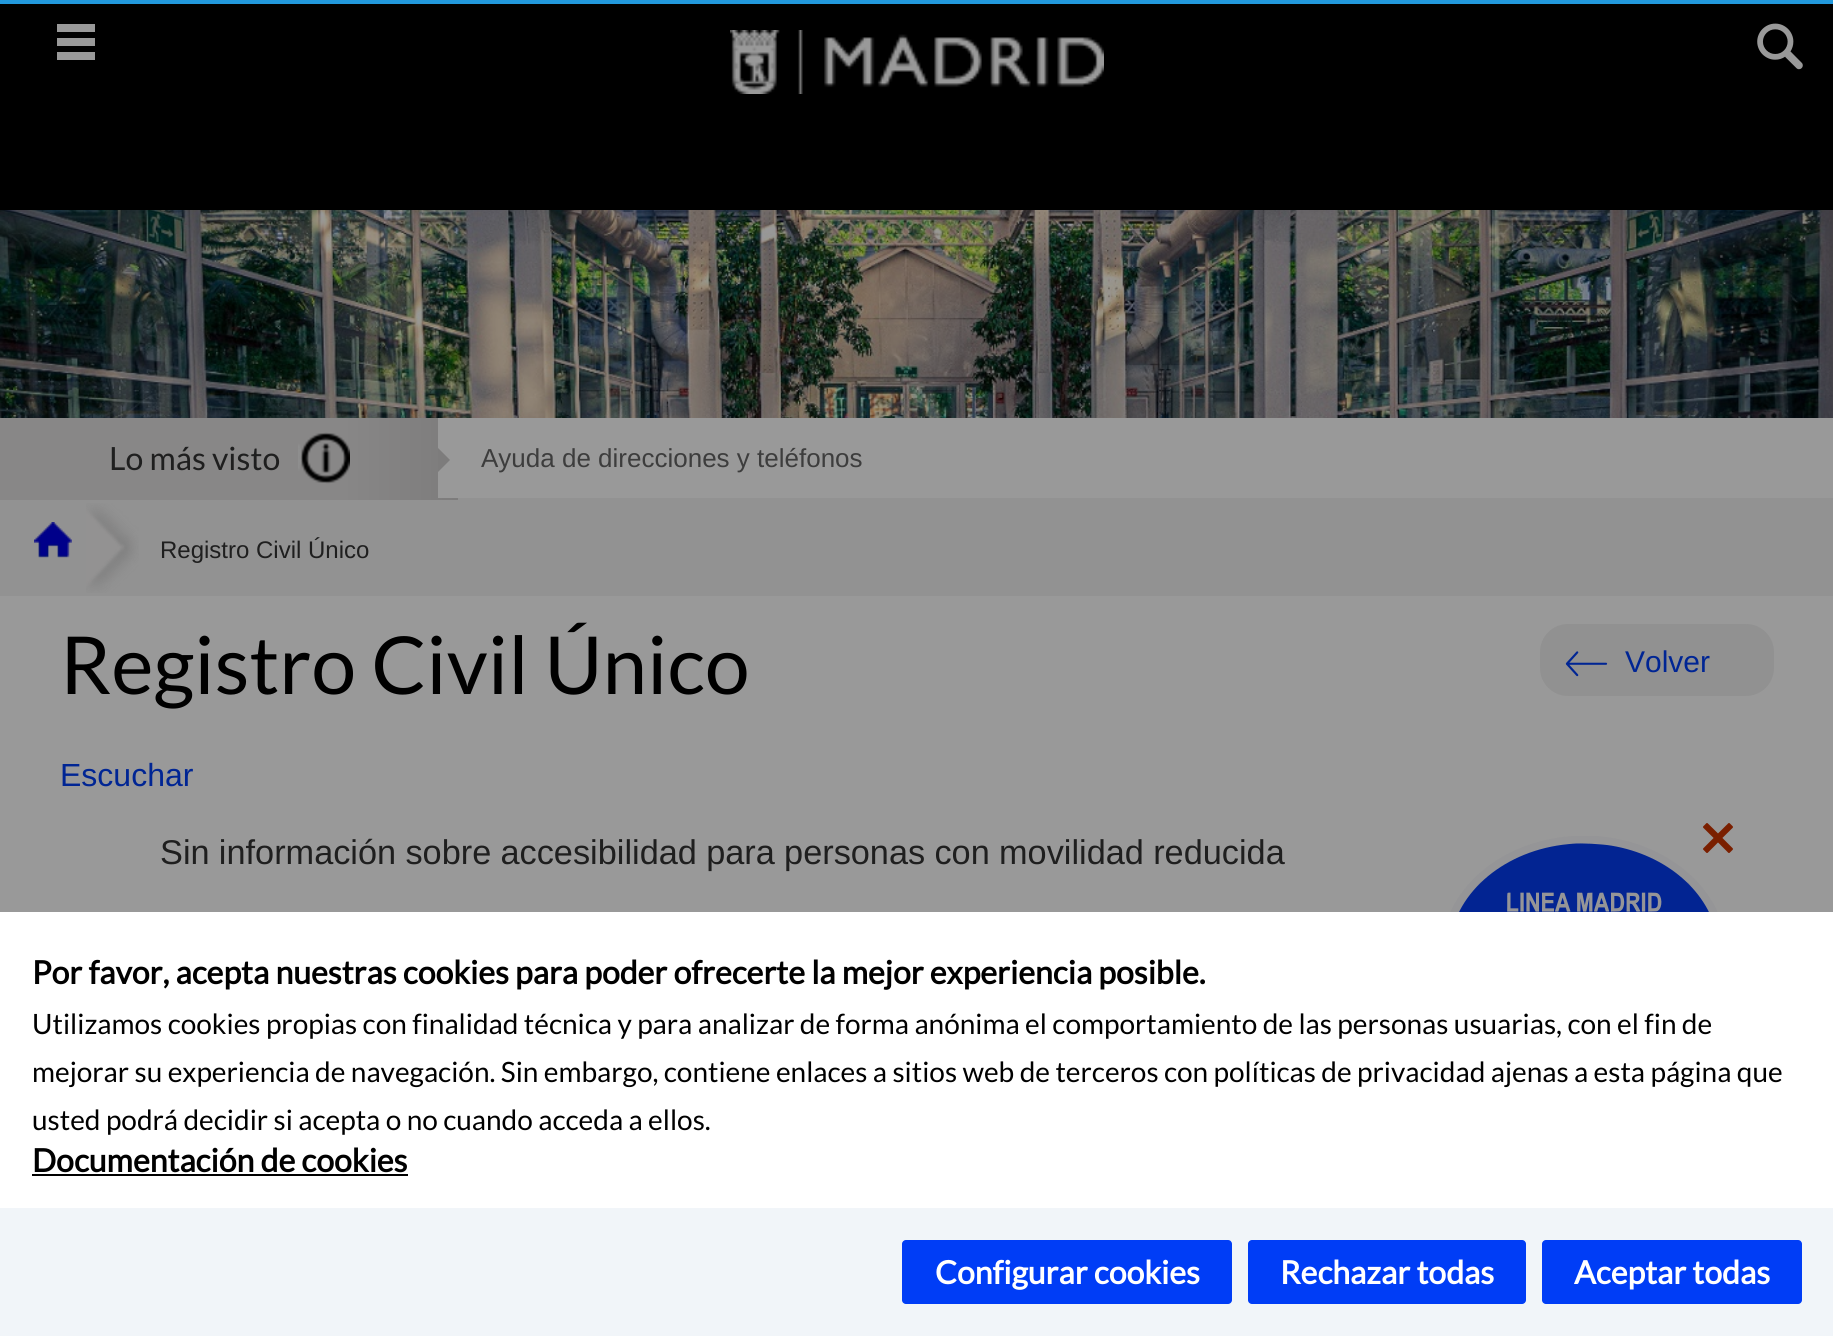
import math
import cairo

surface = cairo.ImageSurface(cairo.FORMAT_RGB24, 1833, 1336)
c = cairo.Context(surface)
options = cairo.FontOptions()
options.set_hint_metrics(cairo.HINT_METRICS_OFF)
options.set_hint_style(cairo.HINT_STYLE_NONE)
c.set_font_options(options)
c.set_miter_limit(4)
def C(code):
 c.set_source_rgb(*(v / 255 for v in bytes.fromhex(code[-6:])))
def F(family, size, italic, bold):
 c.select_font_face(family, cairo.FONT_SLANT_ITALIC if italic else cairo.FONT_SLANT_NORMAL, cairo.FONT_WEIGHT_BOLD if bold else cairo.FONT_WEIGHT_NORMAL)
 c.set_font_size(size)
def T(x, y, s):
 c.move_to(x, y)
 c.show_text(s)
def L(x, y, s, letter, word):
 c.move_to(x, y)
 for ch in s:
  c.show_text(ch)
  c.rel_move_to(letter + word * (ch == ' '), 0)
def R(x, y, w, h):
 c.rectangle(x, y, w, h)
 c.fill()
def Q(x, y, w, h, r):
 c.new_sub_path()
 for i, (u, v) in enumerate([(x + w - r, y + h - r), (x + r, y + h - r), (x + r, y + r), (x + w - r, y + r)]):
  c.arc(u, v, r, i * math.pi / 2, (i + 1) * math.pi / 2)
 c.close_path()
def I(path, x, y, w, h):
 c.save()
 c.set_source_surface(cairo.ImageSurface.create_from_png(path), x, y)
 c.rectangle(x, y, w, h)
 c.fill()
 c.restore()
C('999999')
c.paint()
C('2299dd')
R(0,0,1833,4)
C('000000')
R(0,4,1833,206)
C('999999')
c.new_path()
c.move_to(57,24)
c.line_to(57,32)
c.line_to(95,32)
c.line_to(95,24)
c.close_path()
c.move_to(57,46)
c.line_to(95,46)
c.line_to(95,38)
c.line_to(57,38)
c.close_path()
c.move_to(57,60)
c.line_to(95,60)
c.line_to(95,52)
c.line_to(57,52)
c.close_path()
c.fill()
I('1.png',730,30,374,64)
I('2.png',1757,23,46,47)
I('3.png',0,210,1833,208)
C('929292')
R(0,498,1833,98)
gradient = cairo.LinearGradient(0,459,458,459)
gradient.add_color_stop_rgba(0,0.533,0.529,0.529,1)
gradient.add_color_stop_rgba(.75,0.533,0.529,0.529,1)
gradient.add_color_stop_rgba(1,0.49,0.486,0.486,1)
c.set_source(gradient)
R(0,418,458,82)
F('Lato',32,0,0)
C('1f1f1f')
T(109,470,'Lo más visto')
I('4.png',298,432,52,52)
C('999999')
R(438,418,20,80)
C('7d7c7c')
c.new_path()
c.move_to(438,472)
c.line_to(438,448)
c.line_to(450,460)
c.close_path()
c.fill()
F('Liberation Sans',26,0,0)
C('3d3d3d')
T(481,467,'Ayuda de direcciones y teléfonos')
I('5.png',34,522,38,36)
I('6.png',86,503,53,90)
F('Liberation Sans',24,0,0)
C('1f1f1f')
T(160,558,'Registro Civil Único')
F('Lato',80,0,0)
C('000000')
T(60,694,'Registro Civil Único')
C('919191')
Q(1540,624,234,72,28)
c.fill()
I('7.png',1565,651,43,26)
F('Liberation Sans',30,0,0)
C('002594')
T(1625,672,'Volver')
F('Liberation Sans',32,0,0)
T(60,786,'Escuchar')
F('Liberation Sans',34.3,0,0)
C('1f1f1f')
L(160,864,'Sin información sobre accesibilidad para personas con movilidad reducida',0,-.25)
I('9.png',1450,836,268,76)
I('8.png',1703,823,30,30)
C('ffffff')
R(0,912,1833,296)
F('Lato',32,0,1)
C('000000')
T(32,984,'Por favor, acepta nuestras cookies para poder ofrecerte la mejor experiencia posible.')
F('Lato',28,0,0)
T(32,1034,'Utilizamos cookies propias con finalidad técnica y para analizar de forma anónima el comportamiento de las personas usuarias, con el fin de')
T(32,1082,'mejorar su experiencia de navegación. Sin embargo, contiene enlaces a sitios web de terceros con políticas de privacidad ajenas a esta página que')
T(32,1130,'usted podrá decidir si acepta o no cuando acceda a ellos.')
F('Lato',32,0,1)
T(32,1172,'Documentación de cookies')
R(32,1174,376,2)
C('f1f5f9')
R(0,1208,1833,128)
C('003df6')
Q(902,1240,330,64,4)
c.fill()
C('ffffff')
T(935,1284,'Configurar cookies')
C('003df6')
Q(1248,1240,278,64,4)
c.fill()
C('ffffff')
T(1280,1284,'Rechazar todas')
C('003df6')
Q(1542,1240,260,64,4)
c.fill()
C('ffffff')
T(1574,1284,'Aceptar todas')
surface.write_to_png('o.png')
